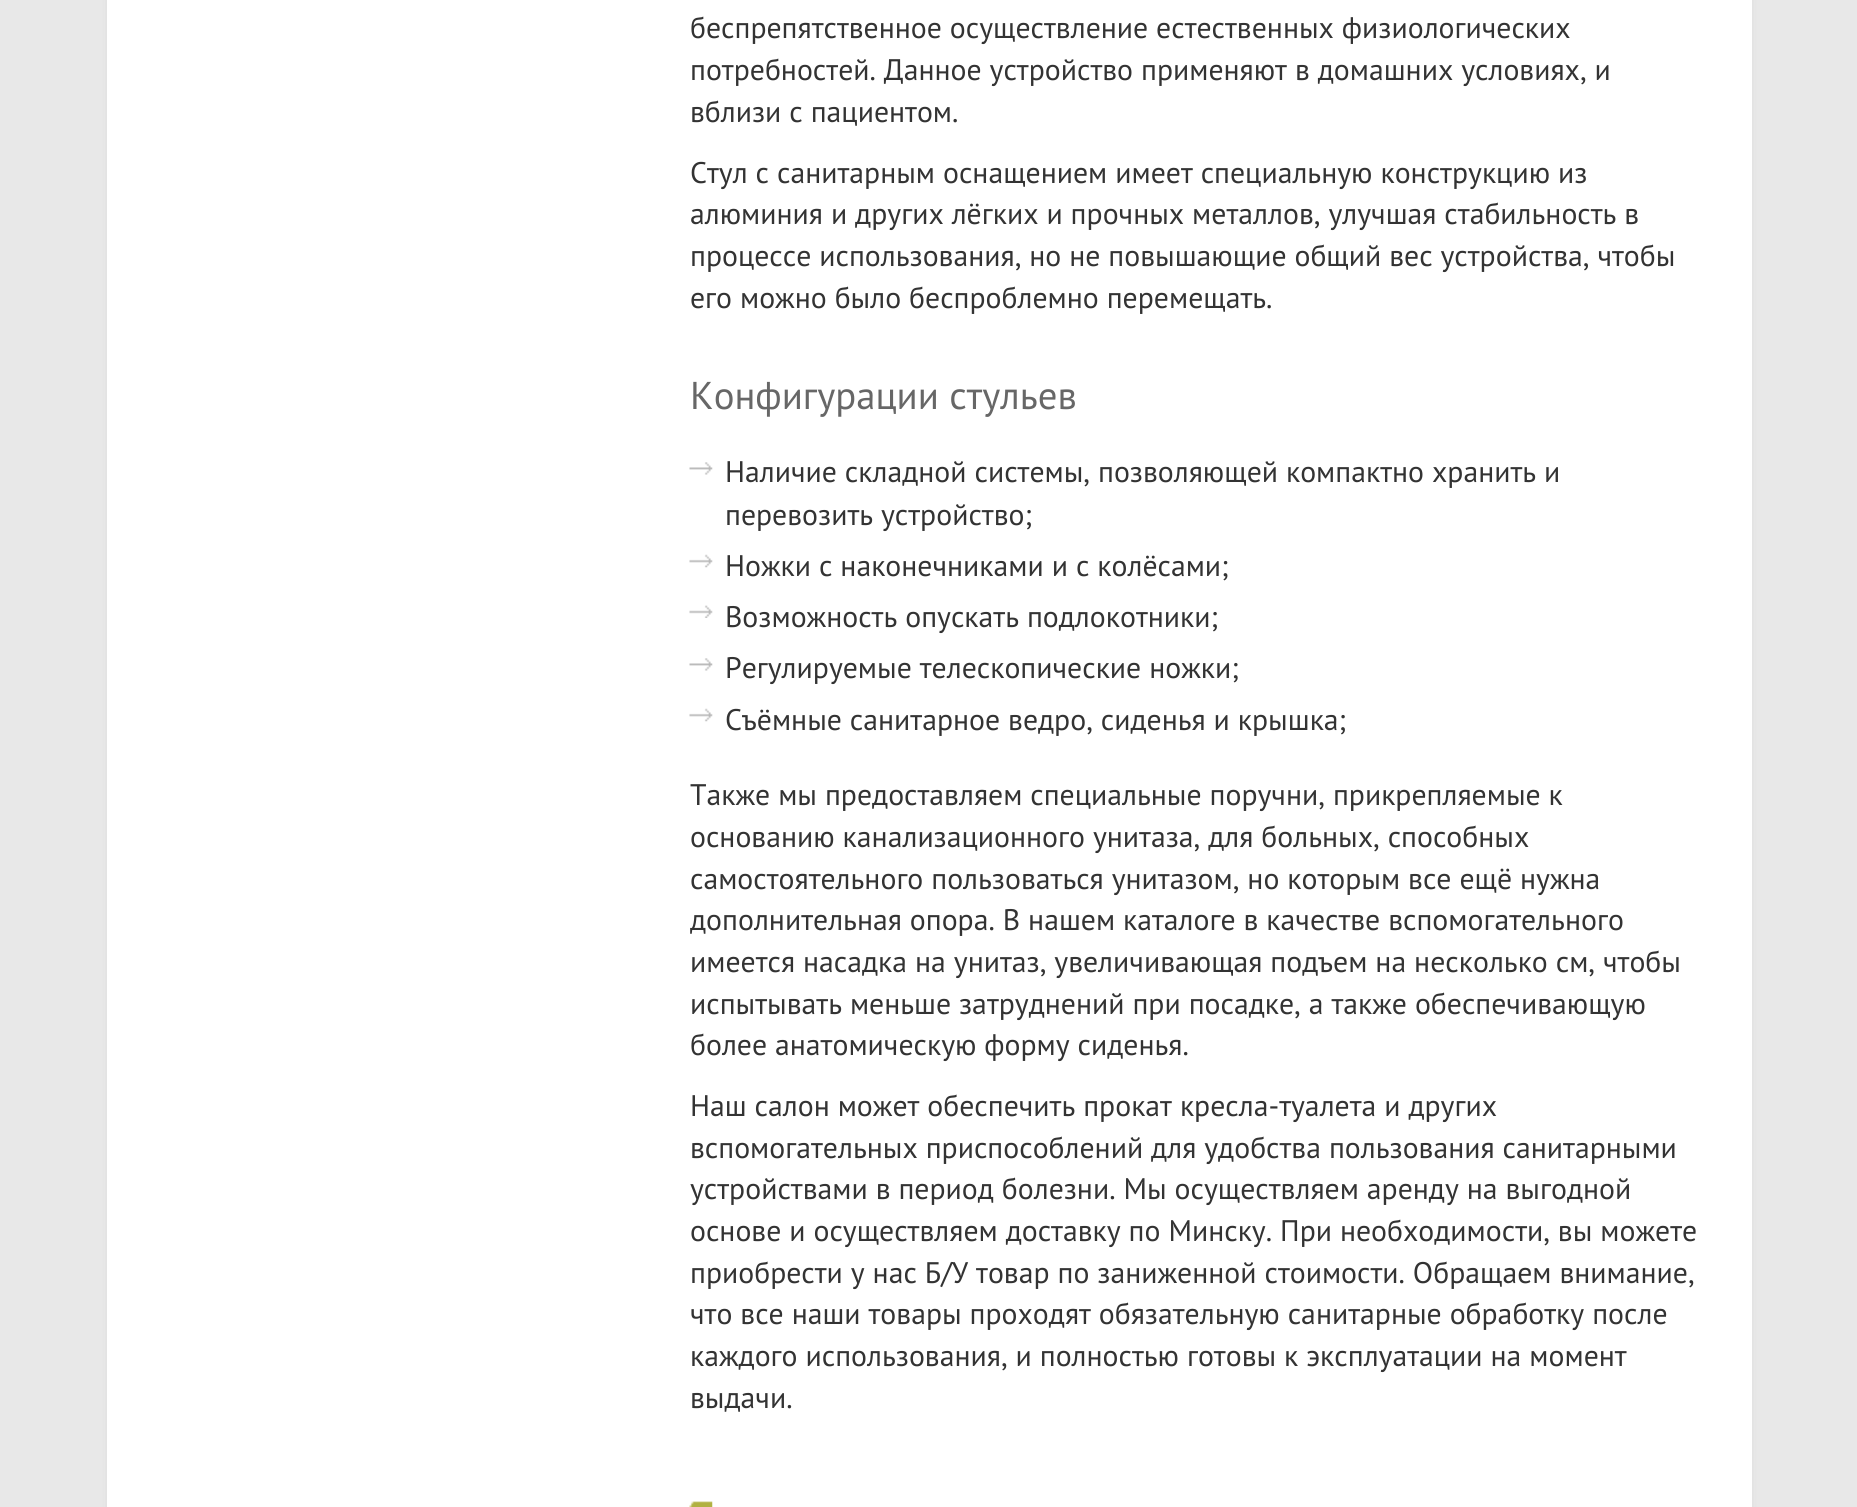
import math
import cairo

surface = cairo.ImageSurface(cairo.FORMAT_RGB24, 1857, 1507)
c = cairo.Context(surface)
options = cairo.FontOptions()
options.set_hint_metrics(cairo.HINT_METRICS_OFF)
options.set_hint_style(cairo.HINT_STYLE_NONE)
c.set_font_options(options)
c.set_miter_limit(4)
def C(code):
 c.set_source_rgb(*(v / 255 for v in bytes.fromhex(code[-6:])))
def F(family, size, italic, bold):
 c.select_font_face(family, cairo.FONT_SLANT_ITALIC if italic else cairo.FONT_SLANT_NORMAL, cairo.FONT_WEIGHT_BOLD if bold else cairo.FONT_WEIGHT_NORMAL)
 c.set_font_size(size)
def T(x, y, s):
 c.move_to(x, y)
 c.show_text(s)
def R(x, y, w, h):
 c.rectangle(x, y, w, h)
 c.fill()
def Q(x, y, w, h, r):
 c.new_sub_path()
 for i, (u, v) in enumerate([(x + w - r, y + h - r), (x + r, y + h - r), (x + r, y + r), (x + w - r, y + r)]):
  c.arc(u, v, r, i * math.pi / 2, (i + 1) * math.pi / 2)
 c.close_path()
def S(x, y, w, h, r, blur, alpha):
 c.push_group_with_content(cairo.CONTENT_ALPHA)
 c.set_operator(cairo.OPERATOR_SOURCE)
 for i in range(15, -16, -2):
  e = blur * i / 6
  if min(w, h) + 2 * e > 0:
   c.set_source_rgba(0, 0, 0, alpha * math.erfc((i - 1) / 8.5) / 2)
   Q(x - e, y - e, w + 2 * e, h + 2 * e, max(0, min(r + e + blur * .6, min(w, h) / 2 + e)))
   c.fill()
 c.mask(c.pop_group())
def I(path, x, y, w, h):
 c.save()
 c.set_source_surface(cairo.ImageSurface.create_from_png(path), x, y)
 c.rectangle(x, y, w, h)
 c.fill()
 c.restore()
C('e8e8e8')
c.paint()
C('999999')
S(114,-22,1631,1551,7,5,1)
C('ffffff')
R(107,0,1645,1507)
F('PT Sans',29.75,0,0)
C('333333')
T(690,38,'беспрепятственное осуществление естественных физиологических')
T(690,80,'потребностей. Данное устройство применяют в домашних условиях, и')
T(690,122,'вблизи с пациентом.')
T(690,183,'Стул с санитарным оснащением имеет специальную конструкцию из')
T(690,224,'алюминия и других лёгких и прочных металлов, улучшая стабильность в')
T(690,266,'процессе использования, но не повышающие общий вес устройства, чтобы')
T(690,308,'его можно было беспроблемно перемещать.')
F('PT Sans',38.75,0,0)
C('676767')
T(690,409,'Конфигурации стульев')
I('1.png',689,462,24,13)
F('PT Sans',29.75,0,0)
C('333333')
T(725,482,'Наличие складной системы, позволяющей компактно хранить и')
T(725,525,'перевозить устройство;')
I('2.png',689,554,24,14)
T(725,576,'Ножки с наконечниками и с колёсами;')
I('3.png',689,605,24,13)
T(725,627,'Возможность опускать подлокотники;')
I('1.png',689,658,24,13)
T(725,678,'Регулируемые телескопические ножки;')
I('2.png',689,708,24,14)
T(725,730,'Съёмные санитарное ведро, сиденья и крышка;')
T(690,805,'Также мы предоставляем специальные поручни, прикрепляемые к')
T(690,847,'основанию канализационного унитаза, для больных, способных')
T(690,889,'самостоятельного пользоваться унитазом, но которым все ещё нужна')
T(690,930,'дополнительная опора. В нашем каталоге в качестве вспомогательного')
T(690,972,'имеется насадка на унитаз, увеличивающая подъем на несколько см, чтобы')
T(690,1014,'испытывать меньше затруднений при посадке, а также обеспечивающую')
T(690,1055,'более анатомическую форму сиденья.')
T(690,1116,'Наш салон может обеспечить прокат кресла-туалета и других')
T(690,1158,'вспомогательных приспособлений для удобства пользования санитарными')
T(690,1199,'устройствами в период болезни. Мы осуществляем аренду на выгодной')
T(690,1241,'основе и осуществляем доставку по Минску. При необходимости, вы можете')
T(690,1283,'приобрести у нас Б/У товар по заниженной стоимости. Обращаем внимание,')
T(690,1324,'что все наши товары проходят обязательную санитарные обработку после')
T(690,1366,'каждого использования, и полностью готовы к эксплуатации на момент')
T(690,1408,'выдачи.')
I('4.png',689,1501,24,6)
surface.write_to_png('o.png')
